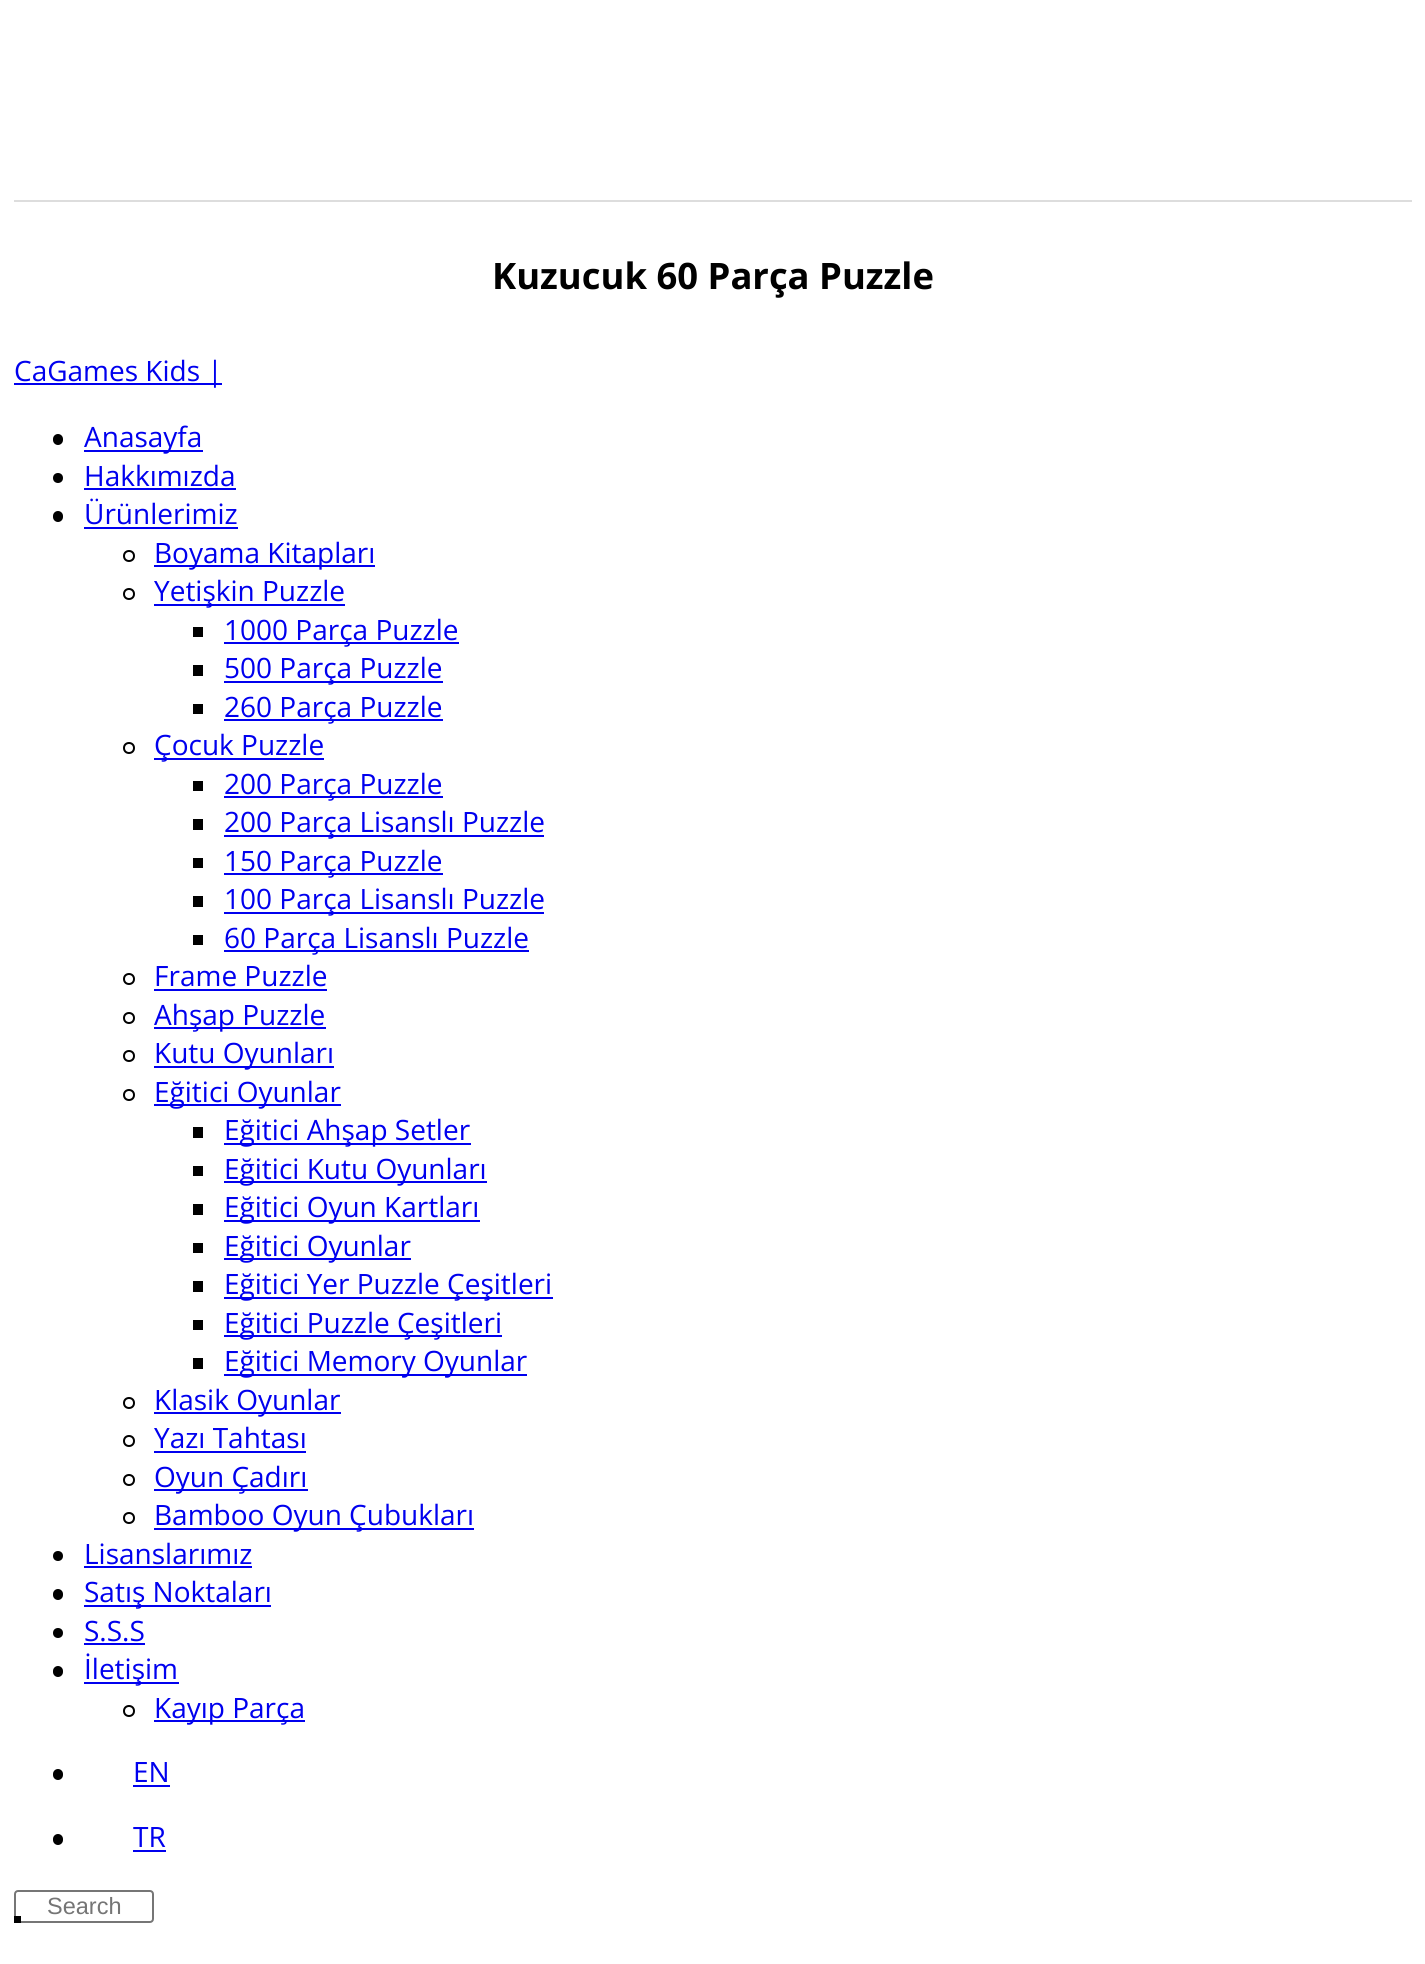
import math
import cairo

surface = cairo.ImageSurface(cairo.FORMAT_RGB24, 1425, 1964)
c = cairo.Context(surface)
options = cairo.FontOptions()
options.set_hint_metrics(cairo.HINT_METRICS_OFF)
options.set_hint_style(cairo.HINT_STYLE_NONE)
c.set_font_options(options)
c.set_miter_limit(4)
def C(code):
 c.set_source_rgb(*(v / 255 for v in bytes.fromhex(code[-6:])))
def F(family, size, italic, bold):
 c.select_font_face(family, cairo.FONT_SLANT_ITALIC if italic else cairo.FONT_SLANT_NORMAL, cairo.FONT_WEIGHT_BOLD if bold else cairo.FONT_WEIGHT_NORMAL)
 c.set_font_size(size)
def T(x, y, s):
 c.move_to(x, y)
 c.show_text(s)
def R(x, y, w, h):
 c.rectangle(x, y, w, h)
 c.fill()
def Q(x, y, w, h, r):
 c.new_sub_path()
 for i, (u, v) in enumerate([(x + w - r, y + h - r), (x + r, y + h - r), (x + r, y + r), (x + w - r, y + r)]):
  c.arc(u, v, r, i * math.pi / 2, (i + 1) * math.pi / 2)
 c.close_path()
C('ffffff')
c.paint()
C('dddddd')
R(14,200,1398,2)
F('Open Sans',36.4,0,1)
C('000000')
T(492,289,'Kuzucuk 60 Parça Puzzle')
C('0000ee')
R(14,383,208,2)
F('Open Sans',28,0,0)
T(14,381,'CaGames Kids |')
C('000000')
Q(53,434,10,11,5)
c.fill()
C('0000ee')
R(84,450,119,2)
T(84,447,'Anasayfa')
C('000000')
c.new_path()
c.arc(58,478,5,0,2 * math.pi)
c.fill()
C('0000ee')
T(84,486,'Hakkımızda')
R(84,488,152,2)
C('000000')
Q(53,511,10,11,5)
c.fill()
C('0000ee')
T(84,524,'Ürünlerimiz')
R(84,527,154,2)
c.new_path()
c.arc(129,556,5,0,2 * math.pi)
C('000000')
c.stroke()
C('0000ee')
R(154,565,221,2)
T(154,563,'Boyama Kitapları')
c.new_path()
c.arc(129,594,5,0,2 * math.pi)
C('000000')
c.stroke()
C('0000ee')
R(154,604,191,2)
T(154,601,'Yetişkin Puzzle')
C('000000')
R(193,627,10,10)
C('0000ee')
R(224,642,235,2)
T(224,640,'1000 Parça Puzzle')
C('000000')
R(193,665,10,11)
C('0000ee')
R(224,681,219,2)
T(224,678,'500 Parça Puzzle')
C('000000')
R(193,704,10,10)
C('0000ee')
R(224,719,219,2)
T(224,717,'260 Parça Puzzle')
c.new_path()
c.arc(129,748,5,0,2 * math.pi)
C('000000')
c.stroke()
C('0000ee')
R(154,758,170,2)
T(154,755,'Çocuk Puzzle')
C('000000')
R(193,781,10,10)
C('0000ee')
R(224,796,219,2)
T(224,794,'200 Parça Puzzle')
C('000000')
R(193,819,10,11)
C('0000ee')
R(224,835,320,2)
T(224,832,'200 Parça Lisanslı Puzzle')
C('000000')
R(193,858,10,10)
C('0000ee')
R(224,873,219,2)
T(224,871,'150 Parça Puzzle')
C('000000')
R(193,896,10,11)
C('0000ee')
R(224,912,320,2)
T(224,909,'100 Parça Lisanslı Puzzle')
C('000000')
R(193,935,10,10)
C('0000ee')
R(224,950,305,2)
T(224,948,'60 Parça Lisanslı Puzzle')
c.new_path()
c.arc(129,979,5,0,2 * math.pi)
C('000000')
c.stroke()
C('0000ee')
T(154,986,'Frame Puzzle')
R(154,989,173,2)
c.new_path()
c.arc(129,1018,5,0,2 * math.pi)
C('000000')
c.stroke()
C('0000ee')
R(154,1027,172,2)
T(154,1025,'Ahşap Puzzle')
c.new_path()
c.arc(129,1056,5,0,2 * math.pi)
C('000000')
c.stroke()
C('0000ee')
R(154,1066,180,2)
T(154,1063,'Kutu Oyunları')
c.new_path()
c.arc(129,1095,5,0,2 * math.pi)
C('000000')
c.stroke()
C('0000ee')
R(154,1104,187,2)
T(154,1102,'Eğitici Oyunlar')
C('000000')
R(193,1127,10,11)
C('0000ee')
R(224,1143,247,2)
T(224,1140,'Eğitici Ahşap Setler')
C('000000')
R(193,1166,10,10)
C('0000ee')
R(224,1181,263,2)
T(224,1179,'Eğitici Kutu Oyunları')
C('000000')
R(193,1204,10,11)
C('0000ee')
R(224,1220,256,2)
T(224,1217,'Eğitici Oyun Kartları')
C('000000')
R(193,1243,10,10)
C('0000ee')
R(224,1258,187,2)
T(224,1256,'Eğitici Oyunlar')
C('000000')
R(193,1281,10,11)
C('0000ee')
R(224,1297,329,2)
T(224,1294,'Eğitici Yer Puzzle Çeşitleri')
C('000000')
R(193,1320,10,10)
C('0000ee')
R(224,1335,278,2)
T(224,1333,'Eğitici Puzzle Çeşitleri')
C('000000')
R(193,1358,10,11)
C('0000ee')
R(224,1374,303,2)
T(224,1371,'Eğitici Memory Oyunlar')
c.new_path()
c.arc(129,1403,5,0,2 * math.pi)
C('000000')
c.stroke()
C('0000ee')
R(154,1412,187,2)
T(154,1410,'Klasik Oyunlar')
c.new_path()
c.arc(129,1441,5,0,2 * math.pi)
C('000000')
c.stroke()
C('0000ee')
T(154,1448,'Yazı Tahtası')
R(154,1451,152,2)
c.new_path()
c.arc(129,1480,5,0,2 * math.pi)
C('000000')
c.stroke()
C('0000ee')
R(154,1489,154,2)
T(154,1487,'Oyun Çadırı')
c.new_path()
c.arc(129,1518,5,0,2 * math.pi)
C('000000')
c.stroke()
C('0000ee')
R(154,1528,320,2)
T(154,1525,'Bamboo Oyun Çubukları')
C('000000')
c.new_path()
c.arc(58,1556,5,0,2 * math.pi)
c.fill()
C('0000ee')
T(84,1564,'Lisanslarımız')
R(84,1566,168,2)
C('000000')
Q(53,1589,10,11,5)
c.fill()
C('0000ee')
R(84,1605,187,2)
T(84,1602,'Satış Noktaları')
C('000000')
c.new_path()
c.arc(58,1633,5,0,2 * math.pi)
c.fill()
C('0000ee')
T(84,1641,'S.S.S')
R(84,1643,61,2)
C('000000')
Q(53,1666,10,11,5)
c.fill()
C('0000ee')
R(84,1682,95,2)
T(84,1679,'İletişim')
c.new_path()
c.arc(129,1711,5,0,2 * math.pi)
C('000000')
c.stroke()
C('0000ee')
R(154,1720,151,2)
T(154,1718,'Kayıp Parça')
C('000000')
Q(53,1769,10,11,5)
c.fill()
C('0000ee')
T(133,1782,'EN')
R(133,1785,37,2)
C('000000')
Q(53,1834,10,11,5)
c.fill()
C('0000ee')
T(133,1847,'TR')
R(133,1850,33,2)
Q(15,1891,138,31,3)
C('767676')
c.stroke()
F('Liberation Sans',23.5,0,0)
C('757575')
T(47,1914,'Search')
C('000000')
R(14,1916,7,7)
surface.write_to_png('o.png')
